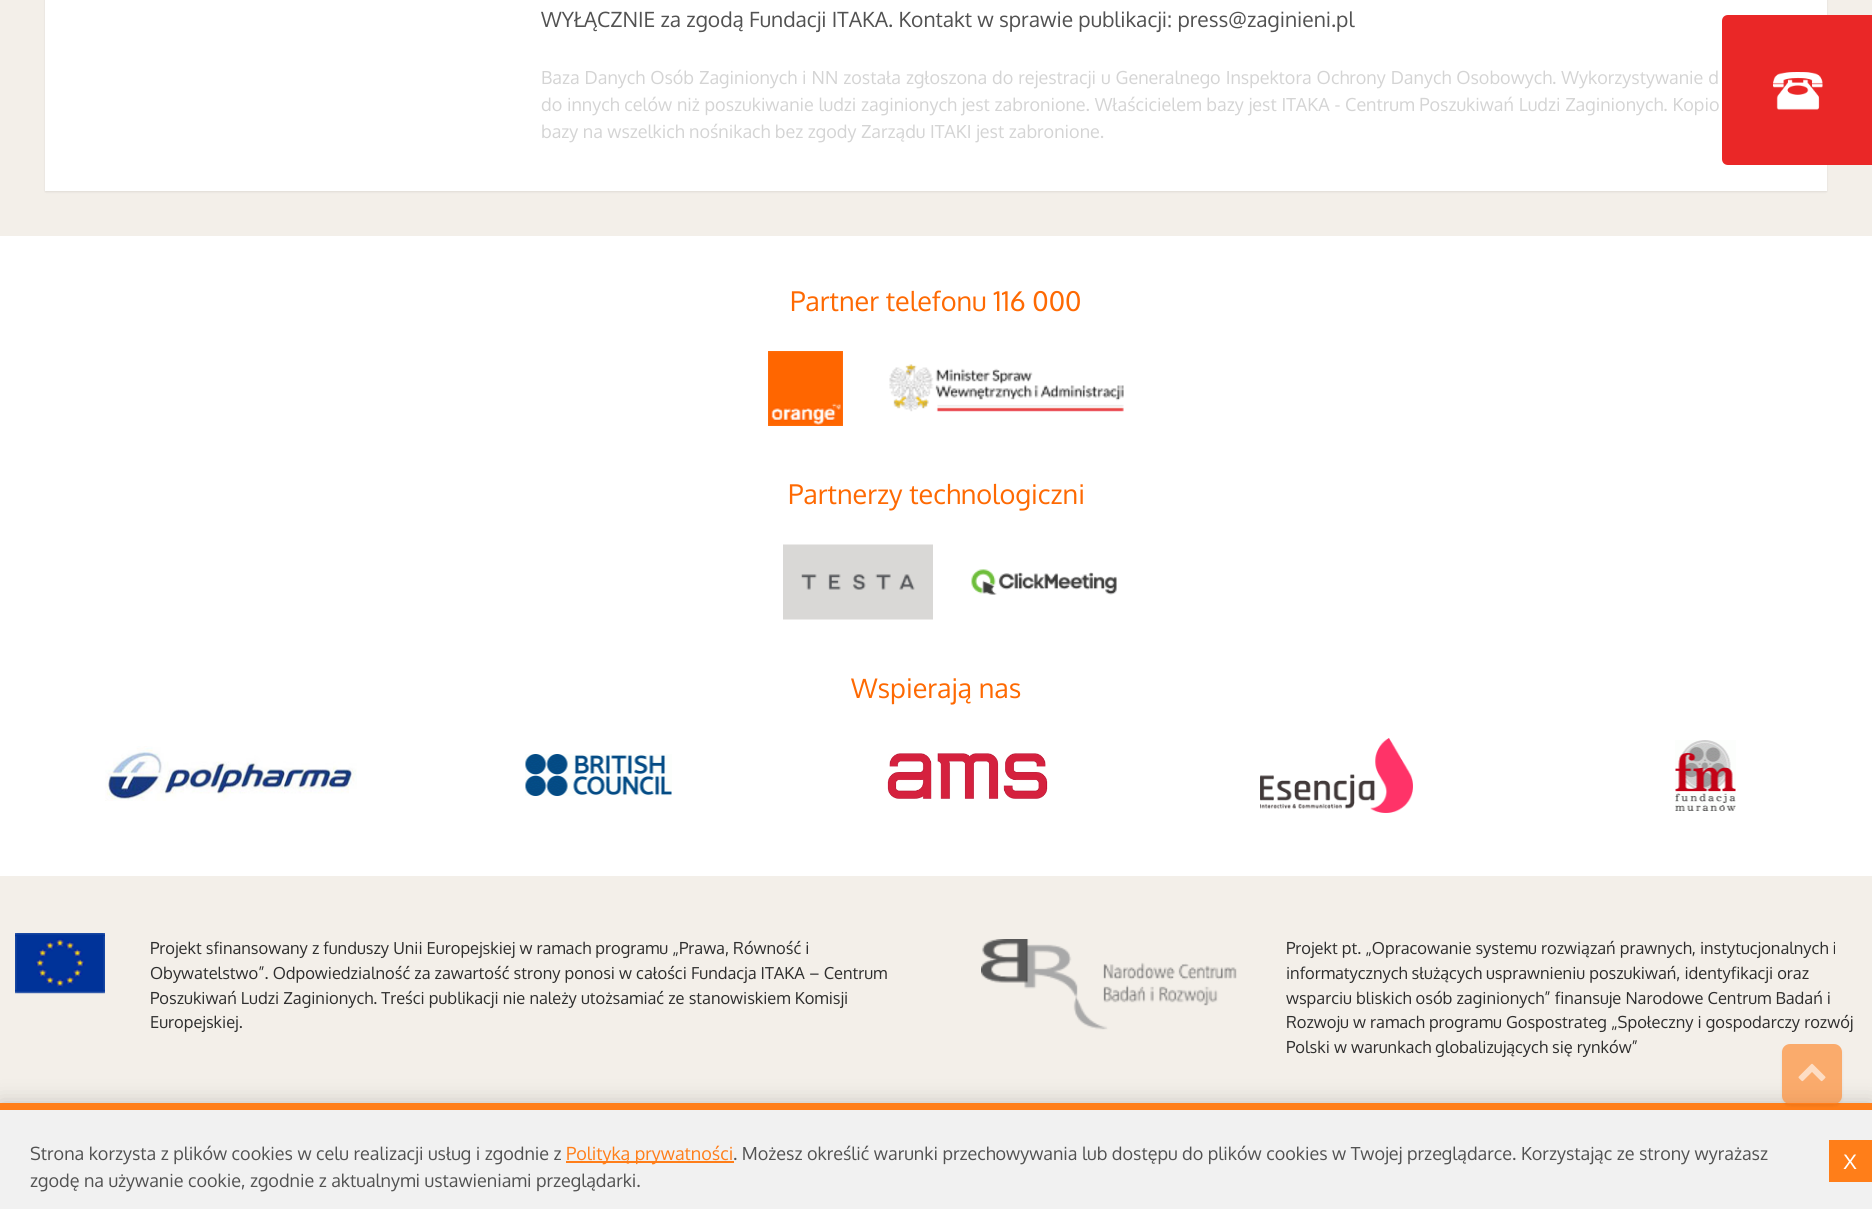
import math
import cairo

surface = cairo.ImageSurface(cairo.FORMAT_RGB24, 1872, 1209)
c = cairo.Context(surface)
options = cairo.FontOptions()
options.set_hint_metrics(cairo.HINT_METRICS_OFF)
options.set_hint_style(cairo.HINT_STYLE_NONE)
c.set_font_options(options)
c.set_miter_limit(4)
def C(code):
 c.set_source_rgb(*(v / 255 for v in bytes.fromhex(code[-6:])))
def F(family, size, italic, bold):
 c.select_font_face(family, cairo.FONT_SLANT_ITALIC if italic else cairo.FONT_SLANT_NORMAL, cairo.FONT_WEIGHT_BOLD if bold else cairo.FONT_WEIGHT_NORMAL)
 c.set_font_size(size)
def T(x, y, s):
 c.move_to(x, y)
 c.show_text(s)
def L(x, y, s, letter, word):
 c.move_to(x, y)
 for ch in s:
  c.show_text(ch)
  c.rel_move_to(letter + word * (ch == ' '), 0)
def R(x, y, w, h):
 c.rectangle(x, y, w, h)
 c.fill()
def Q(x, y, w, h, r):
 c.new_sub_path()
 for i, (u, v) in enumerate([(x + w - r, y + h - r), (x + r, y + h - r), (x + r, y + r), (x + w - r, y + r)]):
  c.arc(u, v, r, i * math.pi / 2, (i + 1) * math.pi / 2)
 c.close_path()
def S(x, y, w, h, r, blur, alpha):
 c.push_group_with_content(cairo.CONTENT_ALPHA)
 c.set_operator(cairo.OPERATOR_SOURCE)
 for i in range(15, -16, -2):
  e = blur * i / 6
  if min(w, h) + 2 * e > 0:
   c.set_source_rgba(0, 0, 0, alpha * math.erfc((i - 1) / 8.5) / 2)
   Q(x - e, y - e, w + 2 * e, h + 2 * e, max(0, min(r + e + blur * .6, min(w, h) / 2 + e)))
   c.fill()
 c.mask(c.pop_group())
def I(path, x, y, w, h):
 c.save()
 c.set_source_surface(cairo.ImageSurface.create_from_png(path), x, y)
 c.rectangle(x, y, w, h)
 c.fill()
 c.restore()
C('f3efe9')
c.paint()
C('000000')
S(45,-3,1782,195,0,1,.08)
C('ffffff')
R(45,0,1782,191)
F('Oxygen',21,0,0)
C('525252')
T(541,27,'WYŁĄCZNIE za zgodą Fundacji ITAKA. Kontakt w sprawie publikacji: press@zaginieni.pl')
F('Oxygen',18,0,0)
C('d4d4d4')
L(541,84,'Baza Danych Osób Zaginionych i NN została zgłoszona do rejestracji u Generalnego Inspektora Ochrony Danych Osobowych. Wykorzystywanie d',0,.5)
L(541,111,'do innych celów niż poszukiwanie ludzi zaginionych jest zabronione. Właścicielem bazy jest ITAKA - Centrum Poszukiwań Ludzi Zaginionych. Kopio',0,.25)
T(541,138,'bazy na wszelkich nośnikach bez zgody Zarządu ITAKI jest zabronione.')
C('ea2727')
c.new_path()
c.move_to(1728,15)
c.line_to(1872,15)
c.line_to(1872,165)
c.line_to(1728,165)
c.curve_to(1724.5,165,1722,162.5,1722,159)
c.line_to(1722,21)
c.curve_to(1722,17.5,1724.5,15,1728,15)
c.close_path()
c.fill()
I('1.png',1773,72,50,38)
C('ffffff')
R(0,236,1872,640)
F('Oxygen',27,0,0)
C('fe6902')
T(790,311,'Partner telefonu 116 000')
I('2.png',768,351,75,75)
I('3.png',889,364,235,48)
T(788,504,'Partnerzy technologiczni')
I('4.png',783,544,150,76)
I('5.png',971,569,146,26)
T(851,698,'Wspierają nas')
I('6.png',105,746,252,55)
I('7.png',525,754,147,42)
I('8.png',887,753,161,46)
I('9.png',1260,738,153,75)
I('10.png',1675,740,61,71)
I('11.png',15,933,90,61)
F('Oxygen',16.5,0,0)
C('2e2e2e')
T(150,954,'Projekt sfinansowany z funduszy Unii Europejskiej w ramach programu „Prawa, Równość i')
T(150,979,'Obywatelstwo”. Odpowiedzialność za zawartość strony ponosi w całości Fundacja ITAKA – Centrum')
T(150,1004,'Poszukiwań Ludzi Zaginionych. Treści publikacji nie należy utożsamiać ze stanowiskiem Komisji')
T(150,1028,'Europejskiej.')
I('12.png',981,939,256,91)
T(1286,954,'Projekt pt. „Opracowanie systemu rozwiązań prawnych, instytucjonalnych i')
T(1286,979,'informatycznych służących usprawnieniu poszukiwań, identyfikacji oraz')
T(1286,1004,'wsparciu bliskich osób zaginionych” finansuje Narodowe Centrum Badań i')
T(1286,1028,'Rozwoju w ramach programu Gospostrateg „Społeczny i gospodarczy rozwój')
T(1286,1053,'Polski w warunkach globalizujących się rynków”')
C('000000')
S(0,1103,1872,106,0,11,.2)
C('f1f1f1')
R(0,1110,1872,99)
C('ff7e19')
R(0,1103,1872,7)
c.save()
c.set_fill_rule(cairo.FILL_RULE_EVEN_ODD)
c.new_path()
c.move_to(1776,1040)
c.line_to(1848,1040)
c.line_to(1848,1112)
c.line_to(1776,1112)
c.close_path()
c.move_to(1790,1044)
c.line_to(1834,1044)
c.curve_to(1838.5,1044,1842,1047.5,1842,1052)
c.line_to(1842,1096)
c.curve_to(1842,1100.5,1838.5,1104,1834,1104)
c.line_to(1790,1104)
c.curve_to(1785.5,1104,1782,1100.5,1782,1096)
c.line_to(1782,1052)
c.curve_to(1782,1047.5,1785.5,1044,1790,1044)
c.close_path()
c.clip()
C('000000')
S(1782,1046,60,60,8,1.5,.06)
c.restore()
c.set_source_rgba(1,0.494,0.098,0.6)
Q(1782,1044,60,60,8)
c.fill()
I('13.png',1798,1063,28,19)
F('Oxygen',18,0,0)
C('525252')
T(30,1160,'Strona korzysta z plików cookies w celu realizacji usług i zgodnie z')
C('ff7e19')
R(566,1161,168,2)
T(566,1160,'Polityką prywatności')
C('525252')
T(733,1160,'. Możesz określić warunki przechowywania lub dostępu do plików cookies w Twojej przeglądarce. Korzystając ze strony wyrażasz')
C('ff7e19')
R(1829,1140,43,42)
F('Liberation Sans',21,0,0)
C('ffffff')
T(1843,1169,'X')
F('Oxygen',18,0,0)
C('525252')
T(30,1187,'zgodę na używanie cookie, zgodnie z aktualnymi ustawieniami przeglądarki.')
surface.write_to_png('o.png')
